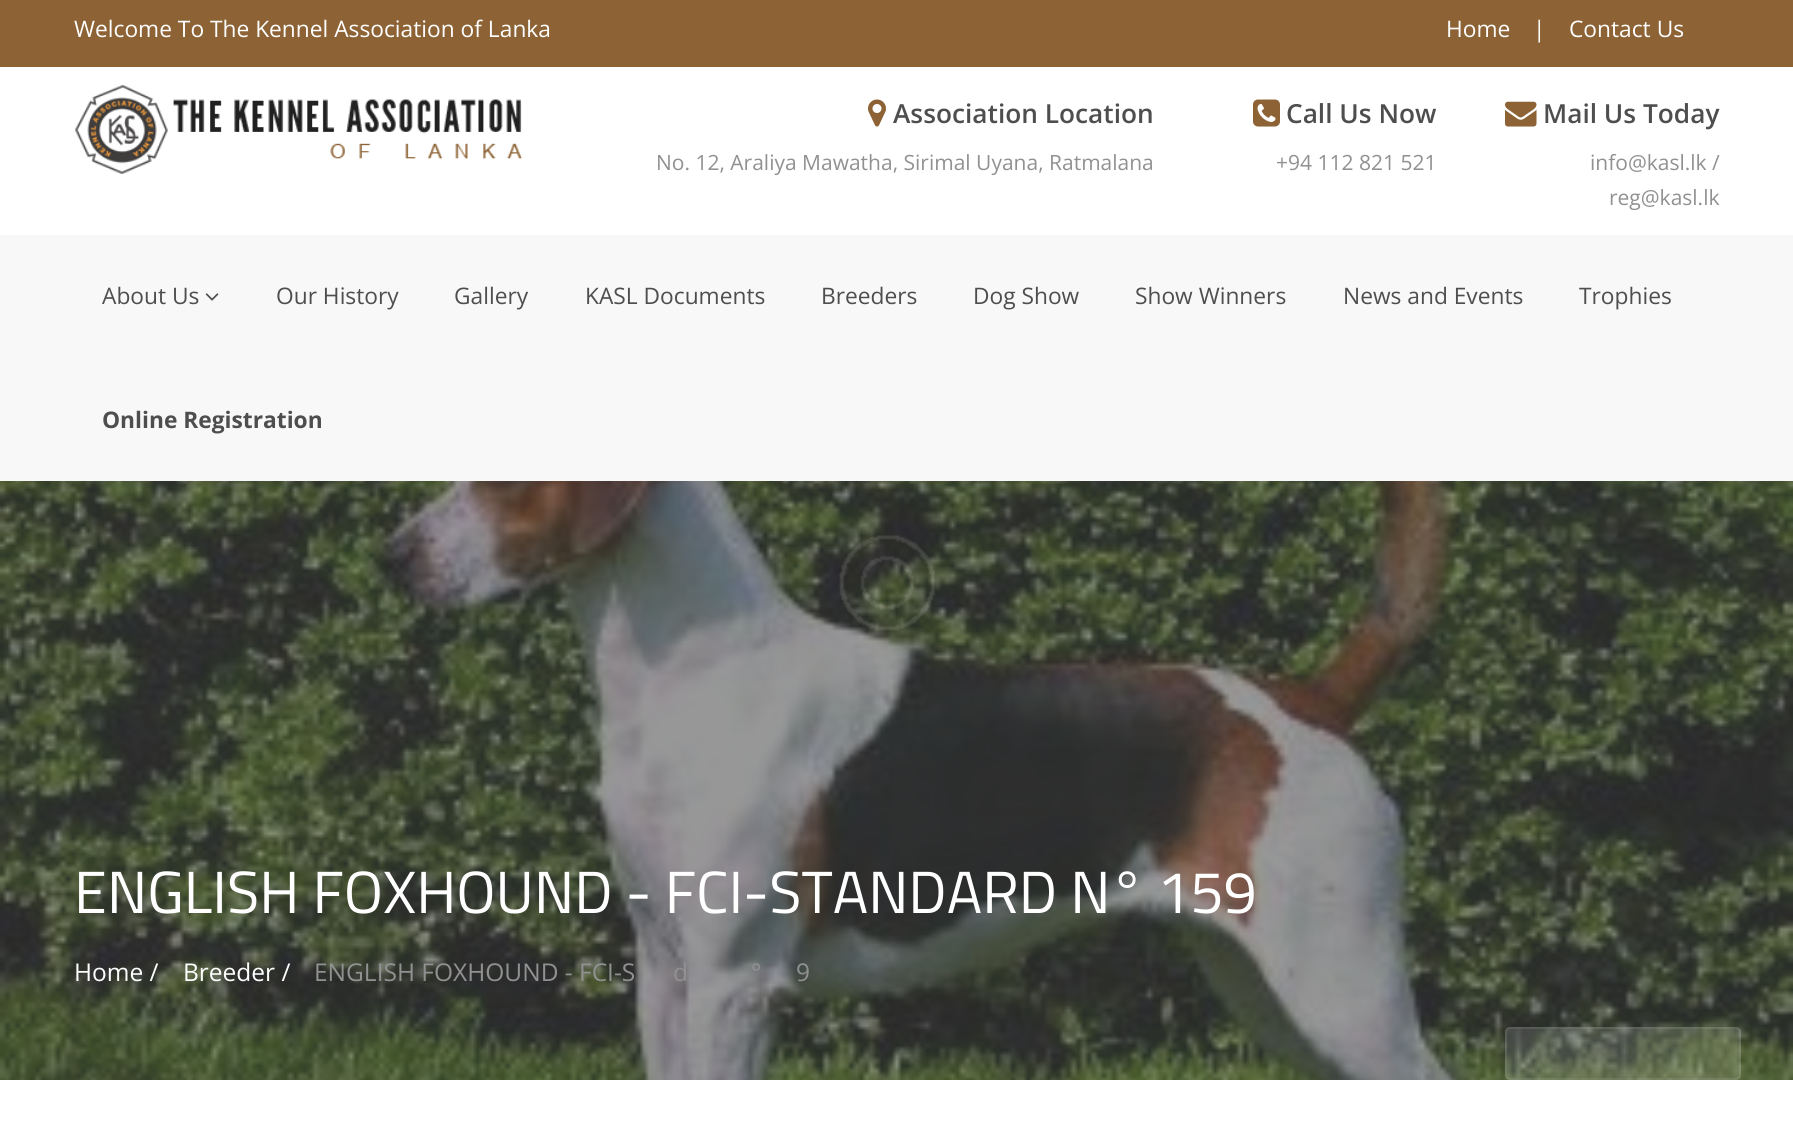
import math
import cairo

surface = cairo.ImageSurface(cairo.FORMAT_RGB24, 1793, 1131)
c = cairo.Context(surface)
options = cairo.FontOptions()
options.set_hint_metrics(cairo.HINT_METRICS_OFF)
options.set_hint_style(cairo.HINT_STYLE_NONE)
c.set_font_options(options)
c.set_miter_limit(4)
def C(code):
 c.set_source_rgb(*(v / 255 for v in bytes.fromhex(code[-6:])))
def F(family, size, italic, bold):
 c.select_font_face(family, cairo.FONT_SLANT_ITALIC if italic else cairo.FONT_SLANT_NORMAL, cairo.FONT_WEIGHT_BOLD if bold else cairo.FONT_WEIGHT_NORMAL)
 c.set_font_size(size)
def T(x, y, s):
 c.move_to(x, y)
 c.show_text(s)
def R(x, y, w, h):
 c.rectangle(x, y, w, h)
 c.fill()
def Q(x, y, w, h, r):
 c.new_sub_path()
 for i, (u, v) in enumerate([(x + w - r, y + h - r), (x + r, y + h - r), (x + r, y + r), (x + w - r, y + r)]):
  c.arc(u, v, r, i * math.pi / 2, (i + 1) * math.pi / 2)
 c.close_path()
def I(path, x, y, w, h):
 c.save()
 c.set_source_surface(cairo.ImageSurface.create_from_png(path), x, y)
 c.rectangle(x, y, w, h)
 c.fill()
 c.restore()
C('ffffff')
c.paint()
C('8d6235')
R(0,0,1793,67)
F('Open Sans',22.75,0,0)
C('ffffff')
T(74,37,'Welcome To The Kennel Association of Lanka')
T(1446,37,'Home')
T(1533,37,'|')
T(1569,37,'Contact Us')
I('1.png',75,85,448,89)
I('2.png',868,99,18,28)
F('Open Sans SemiBold',26.25,0,0)
C('4e4e4e')
T(893,123,'Association Location')
F('Open Sans',21,0,0)
C('919191')
T(656,170,'No. 12, Araliya Mawatha, Sirimal Uyana, Ratmalana')
I('3.png',1253,99,27,28)
F('Open Sans SemiBold',26.25,0,0)
C('4e4e4e')
T(1286,123,'Call Us Now')
F('Open Sans',21,0,0)
C('919191')
T(1276,170,'+94 112 821 521')
I('4.png',1505,101,32,26)
F('Open Sans SemiBold',26.25,0,0)
C('4e4e4e')
T(1543,123,'Mail Us Today')
F('Open Sans',21,0,0)
C('919191')
T(1590,170,'info@kasl.lk /')
T(1609,205,'reg@kasl.lk')
C('f8f8f8')
R(0,235,1793,246)
F('Open Sans',22.75,0,0)
C('4e4e4e')
T(102,304,'About Us')
I('5.png',205,293,14,8)
T(276,304,'Our History')
T(454,304,'Gallery')
T(585,304,'KASL Documents')
T(821,304,'Breeders')
T(973,304,'Dog Show')
T(1135,304,'Show Winners')
T(1343,304,'News and Events')
T(1579,304,'Trophies')
F('Open Sans',22.75,0,1)
T(102,428,'Online Registration')
I('6.png',0,481,1793,599)
F('Titillium Web',59.5,0,0)
C('ffffff')
T(74,913,'ENGLISH FOXHOUND - FCI-STANDARD N° 159')
F('Open Sans',24.5,0,0)
T(74,981,'Home /')
T(183,981,'Breeder /')
C('919191')
T(314,981,'ENGLISH FOXHOUND - FCI-S')
T(673,981,'d')
T(751,981,'°')
T(796,981,'9')
I('7.png',839,535,96,96)
c.set_source_rgba(1,1,1,0.13)
Q(1505,1027,236,53,5)
c.fill()
Q(1506,1028,234,51,4)
c.set_source_rgba(0.8,0.8,0.8,0.13)
c.stroke()
surface.write_to_png('o.png')
